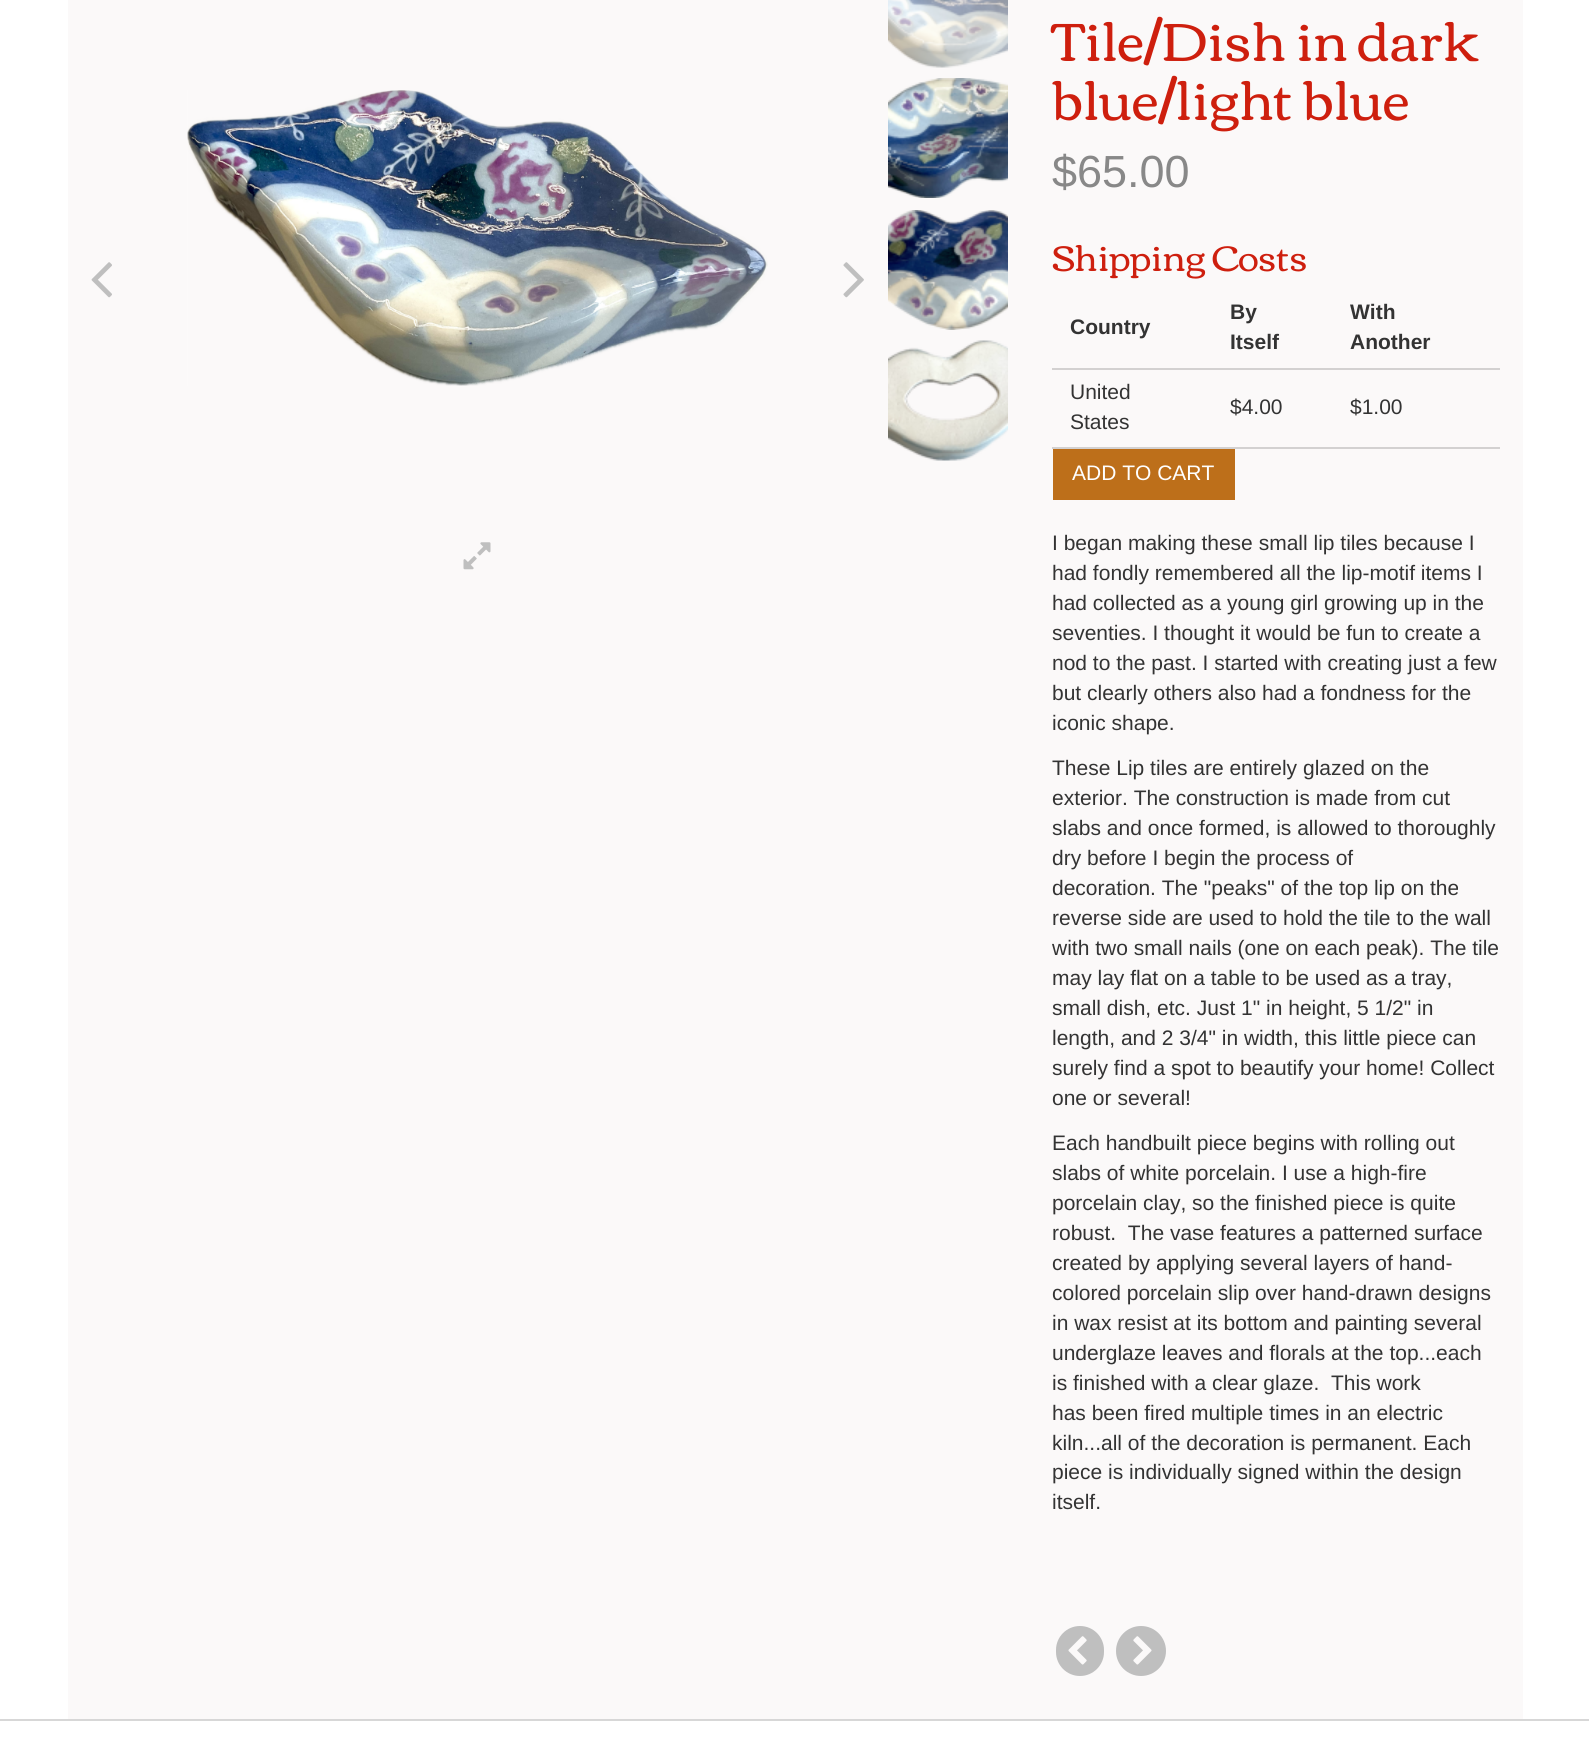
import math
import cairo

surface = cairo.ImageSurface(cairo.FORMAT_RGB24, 1589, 1754)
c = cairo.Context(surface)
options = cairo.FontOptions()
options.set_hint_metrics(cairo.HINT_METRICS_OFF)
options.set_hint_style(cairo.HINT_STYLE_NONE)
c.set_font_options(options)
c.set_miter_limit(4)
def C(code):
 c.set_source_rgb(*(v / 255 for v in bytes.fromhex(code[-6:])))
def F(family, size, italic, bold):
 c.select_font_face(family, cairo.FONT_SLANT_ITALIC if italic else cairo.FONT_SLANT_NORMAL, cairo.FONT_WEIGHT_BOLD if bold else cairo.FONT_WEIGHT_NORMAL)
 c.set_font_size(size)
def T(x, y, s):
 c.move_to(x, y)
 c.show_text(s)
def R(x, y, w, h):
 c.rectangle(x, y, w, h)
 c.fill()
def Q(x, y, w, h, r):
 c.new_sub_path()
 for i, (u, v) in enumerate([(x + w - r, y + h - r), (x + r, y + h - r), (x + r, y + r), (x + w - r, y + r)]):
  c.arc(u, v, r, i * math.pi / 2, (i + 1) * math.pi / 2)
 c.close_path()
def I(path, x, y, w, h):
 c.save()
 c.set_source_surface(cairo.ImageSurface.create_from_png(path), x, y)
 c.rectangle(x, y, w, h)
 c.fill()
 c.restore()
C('ffffff')
c.paint()
C('fbf9f9')
R(68,0,1455,1719)
I('1.png',91,262,21,36)
I('2.png',187,90,581,296)
I('3.png',463,542,28,28)
I('4.png',843,262,21,36)
I('5.png',888,0,120,68)
I('6.png',888,78,120,120)
I('7.png',888,210,120,120)
I('8.png',888,340,120,121)
F('Corben',54,0,0)
C('ce1f0e')
T(1052,61,'Tile/Dish in dark')
T(1052,120,'blue/light blue')
F('Liberation Sans',45,0,0)
C('888888')
T(1052,187,'$65.00')
F('Corben',36,0,0)
C('ce1f0e')
T(1052,271,'Shipping Costs')
F('Liberation Sans',21,0,1)
C('333333')
T(1070,334,'Country')
T(1230,319,'By')
T(1230,349,'Itself')
C('d3d1d1')
R(1052,368,448,2)
C('333333')
T(1350,319,'With')
T(1350,349,'Another')
C('d3d1d1')
R(1052,447,448,2)
F('Liberation Sans',21,0,0)
C('333333')
T(1070,399,'United')
T(1070,429,'States')
T(1230,414,'$4.00')
T(1350,414,'$1.00')
C('bd6f1a')
R(1053,449,182,51)
C('ffffff')
T(1072,480,'ADD TO CART')
C('333333')
T(1052,550,'I began making these small lip tiles because I')
T(1052,580,'had fondly remembered all the lip-motif items I')
T(1052,610,'had collected as a young girl growing up in the')
T(1052,640,'seventies. I thought it would be fun to create a')
T(1052,670,'nod to the past. I started with creating just a few')
T(1052,700,'but clearly others also had a fondness for the')
T(1052,730,'iconic shape.')
T(1052,775,'These Lip tiles are entirely glazed on the')
T(1052,805,'exterior. The construction is made from cut')
T(1052,835,'slabs and once formed, is allowed to thoroughly')
T(1052,865,'dry before I begin the process of')
T(1052,895,'decoration. The "peaks" of the top lip on the')
T(1052,925,'reverse side are used to hold the tile to the wall')
T(1052,955,'with two small nails (one on each peak). The tile')
T(1052,985,'may lay flat on a table to be used as a tray,')
T(1052,1015,'small dish, etc. Just 1" in height, 5 1/2" in')
T(1052,1045,'length, and 2 3/4" in width, this little piece can')
T(1052,1075,'surely find a spot to beautify your home! Collect')
T(1052,1105,'one or several!')
T(1052,1150,'Each handbuilt piece begins with rolling out')
T(1052,1180,'slabs of white porcelain. I use a high-fire')
T(1052,1210,'porcelain clay, so the finished piece is quite')
T(1052,1240,'robust.  The vase features a patterned surface')
T(1052,1270,'created by applying several layers of hand-')
T(1052,1300,'colored porcelain slip over hand-drawn designs')
T(1052,1330,'in wax resist at its bottom and painting several')
T(1052,1360,'underglaze leaves and florals at the top...each')
T(1052,1390,'is finished with a clear glaze.  This work')
T(1052,1420,'has been fired multiple times in an electric')
T(1052,1450,'kiln...all of the decoration is permanent. Each')
T(1052,1479,'piece is individually signed within the design')
T(1052,1509,'itself.')
C('bfbfbf')
Q(1056,1626,48,50,24)
c.fill()
I('9.png',1068,1636,19,29)
c.arc(1141,1651,25,0,2 * math.pi)
c.fill()
I('10.png',1133,1636,19,29)
C('d7d7d7')
R(0,1719,1589,2)
surface.write_to_png('o.png')
